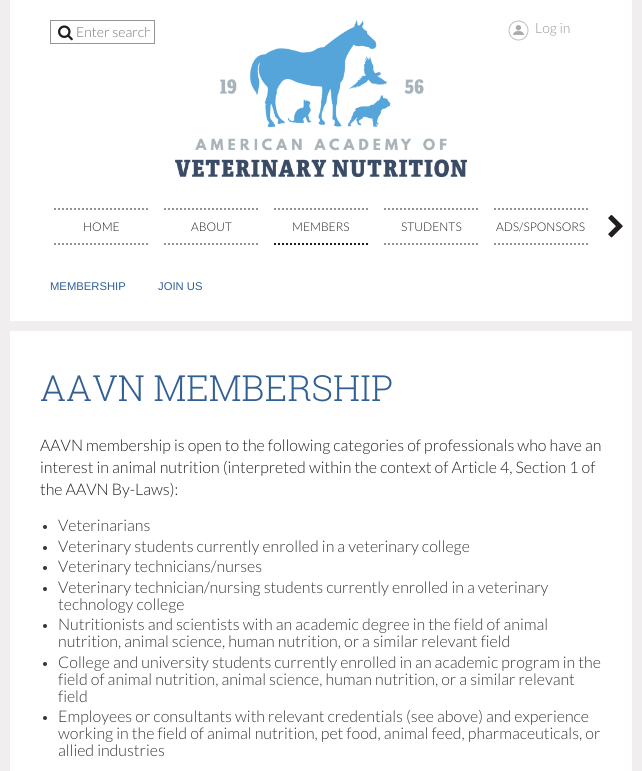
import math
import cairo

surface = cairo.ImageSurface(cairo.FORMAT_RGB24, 642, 771)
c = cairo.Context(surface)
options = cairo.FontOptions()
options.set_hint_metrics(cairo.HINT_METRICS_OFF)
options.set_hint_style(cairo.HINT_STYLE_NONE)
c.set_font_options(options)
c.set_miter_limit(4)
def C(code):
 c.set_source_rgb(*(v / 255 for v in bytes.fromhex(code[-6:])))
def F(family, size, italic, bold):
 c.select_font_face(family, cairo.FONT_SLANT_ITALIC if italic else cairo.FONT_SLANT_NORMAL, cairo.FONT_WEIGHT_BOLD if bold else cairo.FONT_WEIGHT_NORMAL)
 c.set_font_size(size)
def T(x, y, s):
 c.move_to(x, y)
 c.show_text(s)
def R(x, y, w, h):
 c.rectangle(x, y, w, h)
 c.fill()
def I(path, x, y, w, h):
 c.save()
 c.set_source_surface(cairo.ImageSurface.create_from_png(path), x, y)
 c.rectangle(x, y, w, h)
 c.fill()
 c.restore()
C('f0eeee')
c.paint()
C('ffffff')
R(10,0,622,321)
c.rectangle(50.5,20.5,104,23)
C('949493')
c.set_line_width(1)
c.stroke()
I('1.png',58,25,15,16)
c.save()
c.rectangle(76,24,74,16)
c.clip()
F('Lato Light',14,0,0)
C('757575')
T(76,37,'Enter search')
c.restore()
I('2.png',175,20,292,157)
I('3.png',508,20,21,21)
F('Lato Light',14,0,0)
T(535,33,'Log in')
c.new_path()
c.move_to(54,209)
c.line_to(148,209)
c.set_line_width(2)
c.set_dash([2,2])
c.stroke()
c.new_path()
c.move_to(54,244)
c.line_to(148,244)
c.stroke()
F('Lato Light',12,0,0)
C('221e1f')
T(83,231,'HOME')
c.new_path()
c.move_to(164,209)
c.line_to(258,209)
C('949493')
c.stroke()
c.new_path()
c.move_to(164,244)
c.line_to(258,244)
c.stroke()
C('221e1f')
T(191,231,'ABOUT')
c.new_path()
c.move_to(274,209)
c.line_to(368,209)
C('949493')
c.stroke()
c.new_path()
c.move_to(274,244)
c.line_to(368,244)
C('221e1f')
c.stroke()
T(292,231,'MEMBERS')
c.new_path()
c.move_to(384,209)
c.line_to(478,209)
C('949493')
c.stroke()
c.new_path()
c.move_to(384,244)
c.line_to(478,244)
c.stroke()
C('221e1f')
T(401,231,'STUDENTS')
c.new_path()
c.move_to(494,209)
c.line_to(588,209)
C('949493')
c.stroke()
c.new_path()
c.move_to(494,244)
c.line_to(588,244)
c.stroke()
C('221e1f')
T(496,231,'ADS/SPONSORS')
I('4.png',608,215,15,23)
F('Liberation Sans',11.25,0,0)
C('326094')
T(50,290,'MEMBERSHIP')
T(158,290,'JOIN US')
C('ffffff')
R(10,331,622,440)
F('Roboto Slab Light',36,0,0)
C('326094')
T(40,401,'AAVN MEMBERSHIP')
F('Lato Light',16,0,0)
C('221e1f')
T(40,451,'AAVN membership is open to the following categories of professionals who have an')
T(40,473,'interest in animal nutrition (interpreted within the context of Article 4, Section 1 of')
T(40,495,'the AAVN By-Laws):')
C('373737')
c.new_path()
c.arc(45,527,2,0,2 * math.pi)
c.fill()
T(58,531,'Veterinarians')
c.new_path()
c.arc(45,548,2,0,2 * math.pi)
c.fill()
T(58,552,'Veterinary students currently enrolled in a veterinary college')
c.new_path()
c.arc(45,568,2,0,2 * math.pi)
c.fill()
T(58,572,'Veterinary technicians/nurses')
c.new_path()
c.arc(45,589,2,0,2 * math.pi)
c.fill()
T(58,593,'Veterinary technician/nursing students currently enrolled in a veterinary')
T(58,610,'technology college')
c.new_path()
c.arc(45,626,2,0,2 * math.pi)
c.fill()
T(58,630,'Nutritionists and scientists with an academic degree in the field of animal')
T(58,647,'nutrition, animal science, human nutrition, or a similar relevant field')
c.new_path()
c.arc(45,664,2,0,2 * math.pi)
c.fill()
T(58,668,'College and university students currently enrolled in an academic program in the')
T(58,685,'field of animal nutrition, animal science, human nutrition, or a similar relevant')
T(58,702,'field')
c.new_path()
c.arc(45,718,2,0,2 * math.pi)
c.fill()
T(58,722,'Employees or consultants with relevant credentials (see above) and experience')
T(58,739,'working in the field of animal nutrition, pet food, animal feed, pharmaceuticals, or')
T(58,756,'allied industries')
surface.write_to_png('o.png')
